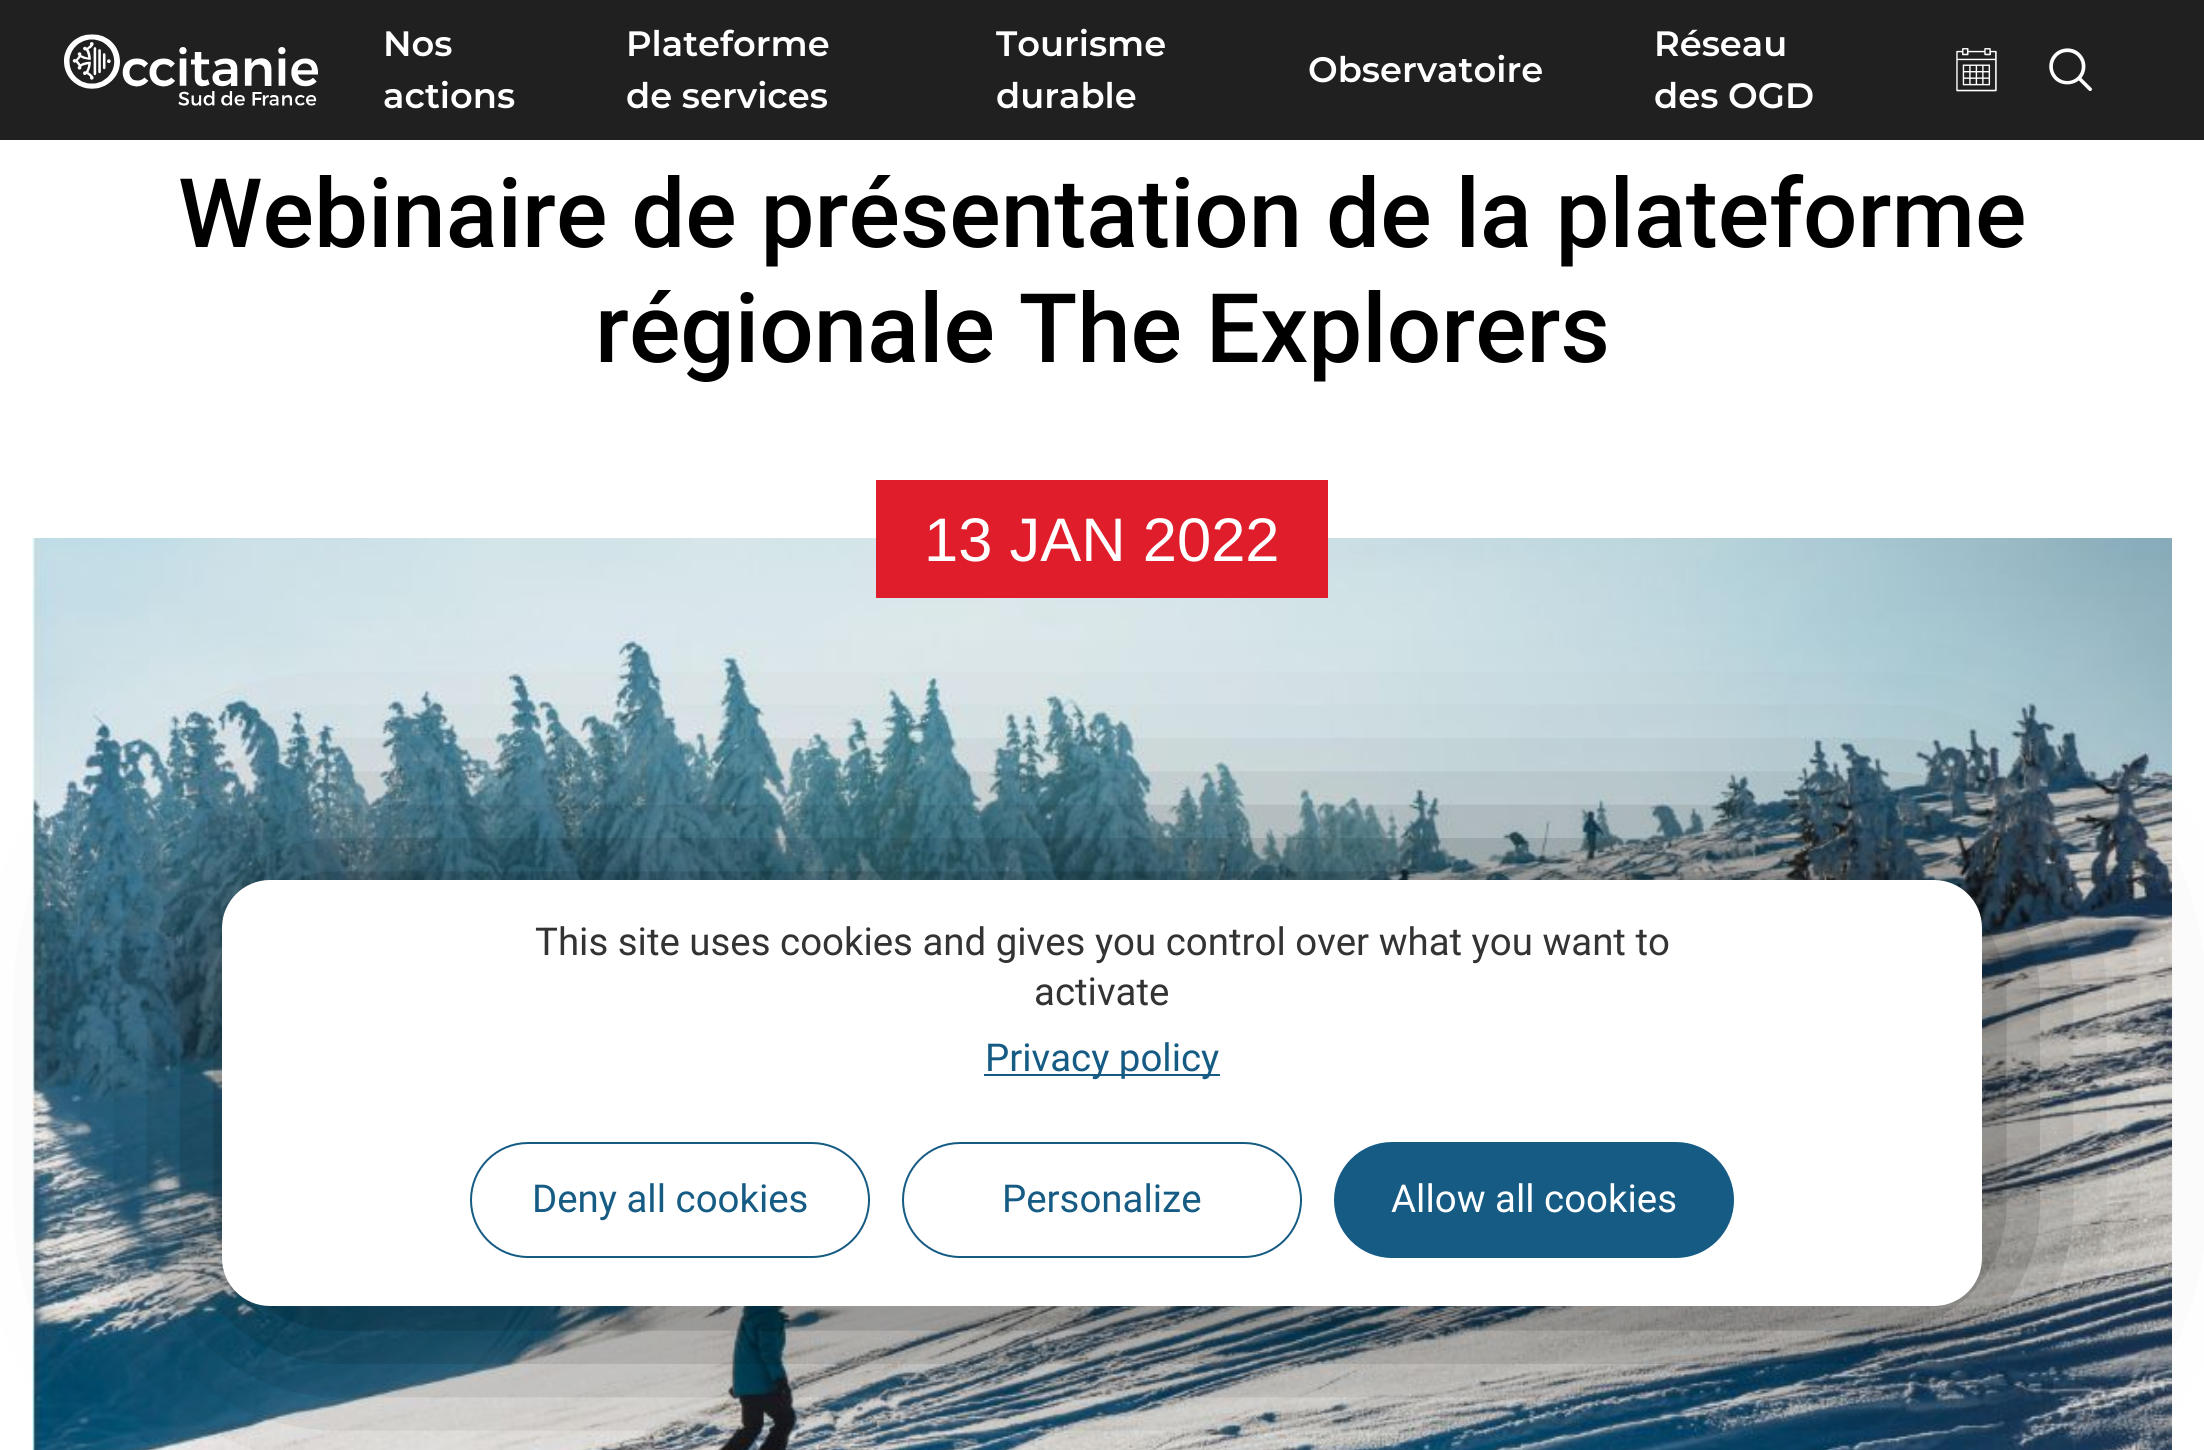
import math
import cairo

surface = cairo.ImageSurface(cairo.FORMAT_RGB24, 2204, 1450)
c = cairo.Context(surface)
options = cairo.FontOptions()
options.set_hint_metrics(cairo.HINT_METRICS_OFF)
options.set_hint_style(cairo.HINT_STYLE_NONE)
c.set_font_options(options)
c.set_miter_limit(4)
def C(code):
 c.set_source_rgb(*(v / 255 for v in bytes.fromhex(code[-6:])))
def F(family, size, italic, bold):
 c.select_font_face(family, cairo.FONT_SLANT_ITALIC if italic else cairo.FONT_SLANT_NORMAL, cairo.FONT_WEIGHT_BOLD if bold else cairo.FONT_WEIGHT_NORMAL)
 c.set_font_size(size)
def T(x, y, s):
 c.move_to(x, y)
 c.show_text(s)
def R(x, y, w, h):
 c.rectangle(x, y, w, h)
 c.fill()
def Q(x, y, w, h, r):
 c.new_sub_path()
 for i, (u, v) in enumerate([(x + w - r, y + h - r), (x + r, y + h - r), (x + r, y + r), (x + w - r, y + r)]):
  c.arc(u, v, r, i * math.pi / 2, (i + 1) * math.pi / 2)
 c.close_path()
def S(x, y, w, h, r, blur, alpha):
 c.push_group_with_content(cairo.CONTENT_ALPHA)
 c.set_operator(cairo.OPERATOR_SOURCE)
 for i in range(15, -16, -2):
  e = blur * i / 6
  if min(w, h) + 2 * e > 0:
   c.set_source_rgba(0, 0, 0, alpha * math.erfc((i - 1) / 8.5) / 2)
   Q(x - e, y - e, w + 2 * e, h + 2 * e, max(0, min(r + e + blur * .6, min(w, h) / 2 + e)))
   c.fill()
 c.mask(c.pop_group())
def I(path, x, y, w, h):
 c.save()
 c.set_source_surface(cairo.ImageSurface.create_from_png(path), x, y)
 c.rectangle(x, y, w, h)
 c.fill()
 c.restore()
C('ffffff')
c.paint()
C('202020')
R(0,0,2204,140)
I('1.png',64,34,254,72)
F('Montserrat SemiBold',35.25,0,0)
C('ffffff')
T(383,56,'Nos')
T(383,108,'actions')
T(626,56,'Plateforme')
T(626,108,'de services')
T(996,56,'Tourisme')
T(996,108,'durable')
T(1308,82,'Observatoire')
T(1654,56,'Réseau')
T(1654,108,'des OGD')
I('2.png',1956,48,41,44)
I('3.png',2049,48,43,43)
F('Roboto Medium',96,0,0)
C('000000')
T(178,247,'Webinaire de présentation de la plateforme')
T(595,362,'régionale The Explorers')
I('4.png',32,538,2140,912)
C('e01e2b')
R(876,480,452,118)
F('Liberation Sans',61.5,0,0)
C('ffffff')
T(924,561,'13 JAN 2022')
C('000000')
S(230,888,1760,426,48,100,.7)
C('ffffff')
Q(222,880,1760,426,48)
c.fill()
F('Roboto',38.4,0,0)
C('333333')
T(535,955,'This site uses cookies and gives you control over what you want to')
T(1034,1005,'activate')
C('155b84')
R(984,1074,236,2)
T(985,1071,'Privacy policy')
Q(471,1143,398,114,57)
c.stroke()
T(532,1212,'Deny all cookies')
Q(903,1143,398,114,57)
c.stroke()
T(1002,1212,'Personalize')
Q(1335,1143,398,114,57)
c.fill_preserve()
c.stroke()
C('ffffff')
T(1391,1212,'Allow all cookies')
surface.write_to_png('o.png')
